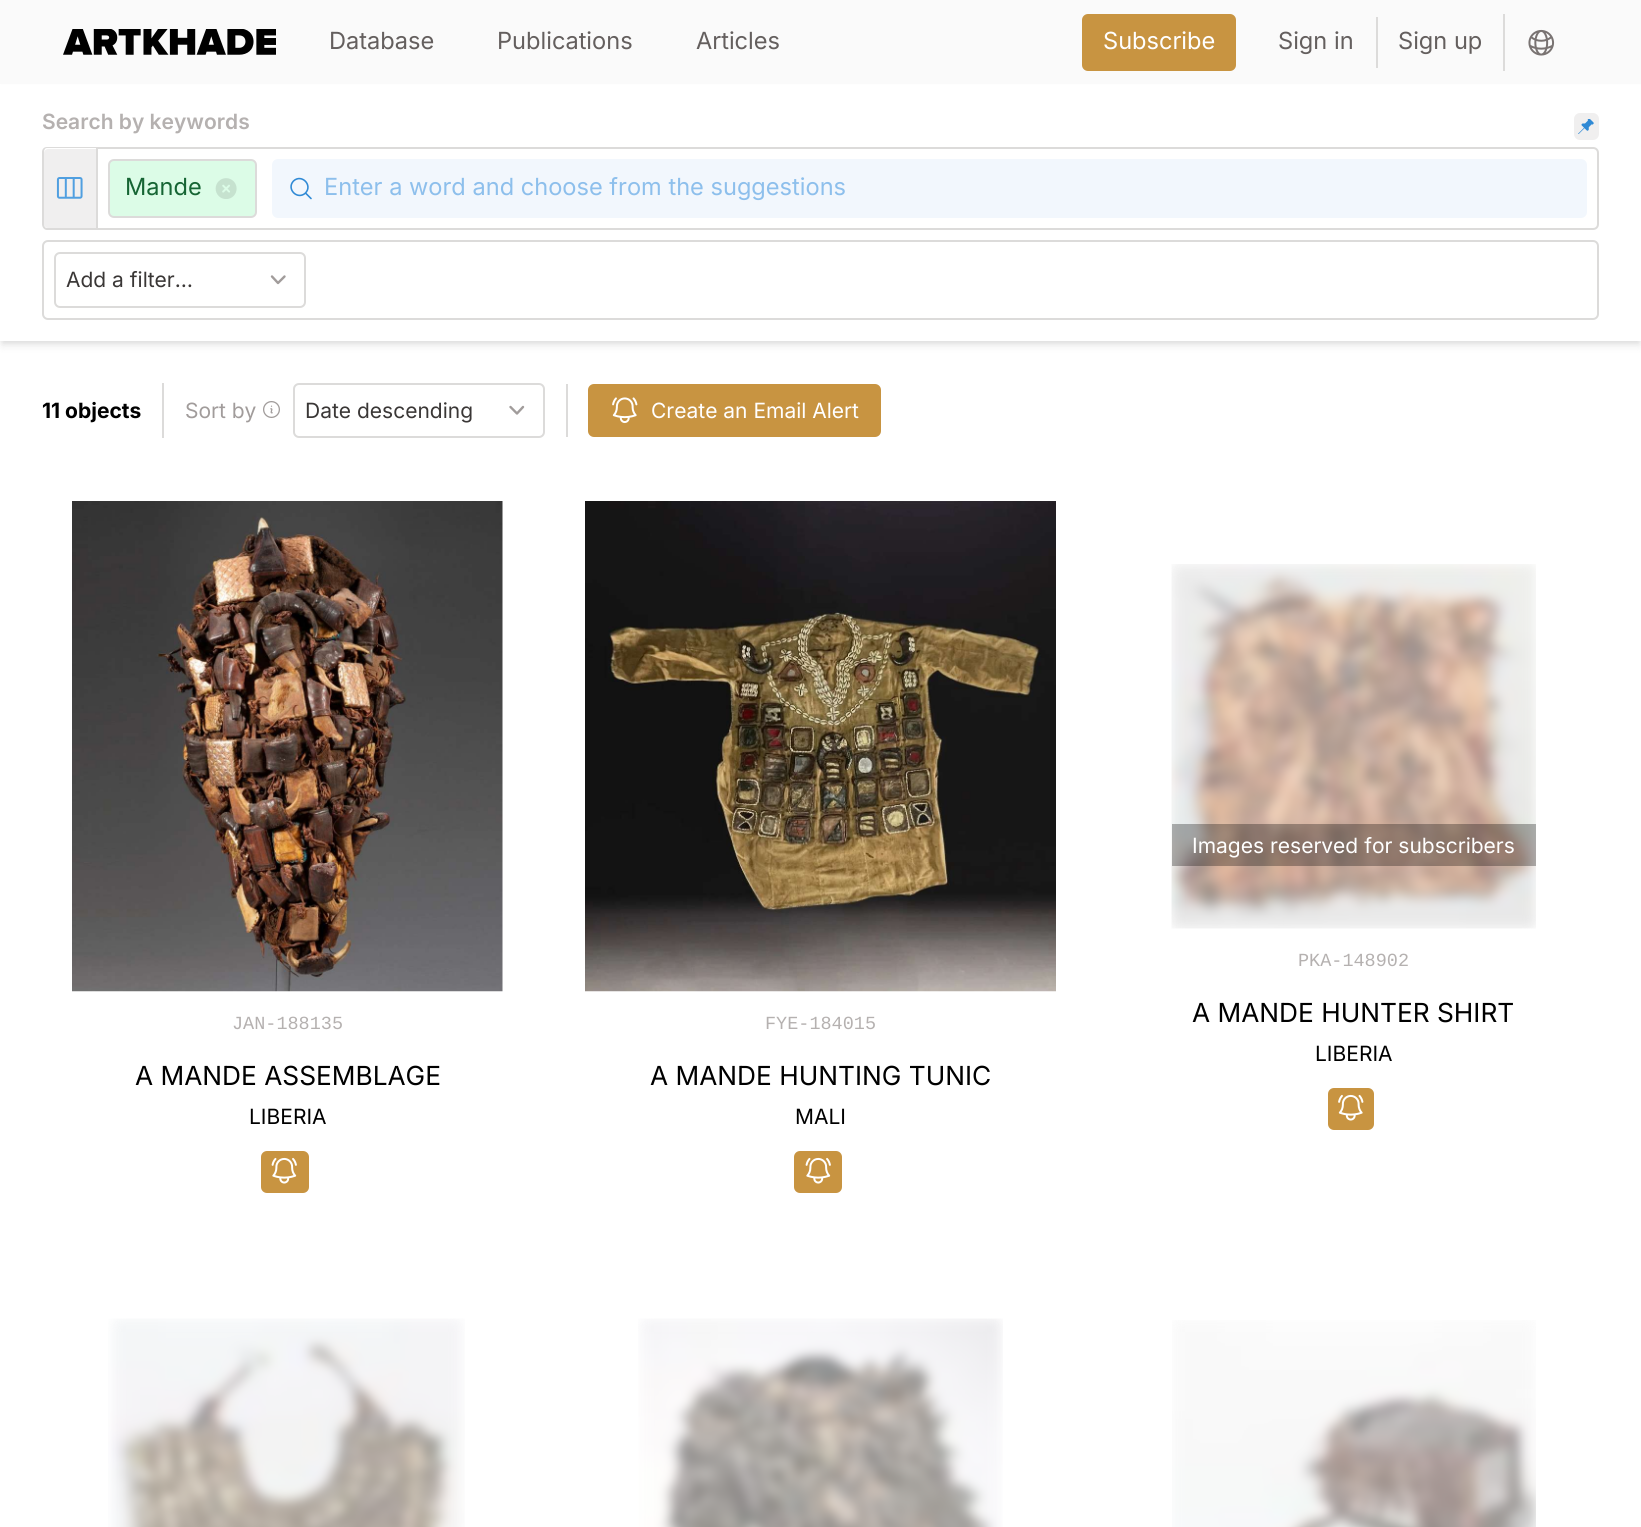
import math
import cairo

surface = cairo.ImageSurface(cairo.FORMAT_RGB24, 1641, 1527)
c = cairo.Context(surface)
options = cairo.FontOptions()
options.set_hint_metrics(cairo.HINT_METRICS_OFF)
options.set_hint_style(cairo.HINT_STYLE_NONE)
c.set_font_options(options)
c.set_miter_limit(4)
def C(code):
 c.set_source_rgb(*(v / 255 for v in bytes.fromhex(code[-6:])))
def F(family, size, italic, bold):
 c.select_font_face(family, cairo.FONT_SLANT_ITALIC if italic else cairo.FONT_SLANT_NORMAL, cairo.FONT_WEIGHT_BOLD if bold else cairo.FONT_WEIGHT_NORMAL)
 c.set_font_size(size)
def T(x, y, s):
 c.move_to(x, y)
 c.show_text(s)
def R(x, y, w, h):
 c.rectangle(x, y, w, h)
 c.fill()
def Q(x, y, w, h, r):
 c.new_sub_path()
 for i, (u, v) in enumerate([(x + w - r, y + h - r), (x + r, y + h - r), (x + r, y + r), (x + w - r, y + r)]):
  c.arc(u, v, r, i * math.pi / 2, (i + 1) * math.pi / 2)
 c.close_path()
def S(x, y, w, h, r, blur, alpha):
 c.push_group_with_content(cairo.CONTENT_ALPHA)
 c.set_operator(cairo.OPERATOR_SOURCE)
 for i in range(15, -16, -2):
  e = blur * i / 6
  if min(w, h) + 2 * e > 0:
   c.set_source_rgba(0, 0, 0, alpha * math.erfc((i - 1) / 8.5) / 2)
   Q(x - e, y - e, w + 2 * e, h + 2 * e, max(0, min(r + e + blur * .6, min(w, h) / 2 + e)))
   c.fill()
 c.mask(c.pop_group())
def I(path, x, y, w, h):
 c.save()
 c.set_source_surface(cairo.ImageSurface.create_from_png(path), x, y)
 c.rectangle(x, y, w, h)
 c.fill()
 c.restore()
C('ffffff')
c.paint()
C('fafafa')
R(0,0,1641,84)
I('1.png',63,29,213,26)
F('Inter',23.6,0,0)
C('645f5e')
T(329,49,'Database')
T(497,49,'Publications')
T(696,49,'Articles')
C('c89441')
Q(1082,14,154,57,6)
c.fill()
C('ffffff')
T(1103,49,'Subscribe')
C('645f5e')
T(1278,49,'Sign in')
C('dcdbda')
R(1376,17,2,51)
C('645f5e')
T(1398,49,'Sign up')
C('dcdbda')
R(1503,14,2,57)
I('2.png',1528,29,27,27)
C('000000')
S(3,90,1635,251,0,3,.1)
S(2,92,1638,253,0,4.5,.1)
C('ffffff')
R(0,85,1641,256)
F('Inter SemiBold',21,0,0)
C('b5b1b0')
T(42,129,'Search by keywords')
C('f0efef')
Q(1574,113,25,27,6)
c.fill()
I('3.png',1578,119,16,15)
c.new_path()
c.move_to(48,149)
c.line_to(96,149)
c.line_to(96,228)
c.line_to(48,228)
c.curve_to(46,228,44,226,44,224)
c.line_to(44,153)
c.curve_to(44,151,46,149,48,149)
c.close_path()
c.fill()
C('dcdbda')
c.set_fill_rule(cairo.FILL_RULE_EVEN_ODD)
c.new_path()
c.move_to(47,147)
c.line_to(96,147)
c.line_to(96,230)
c.line_to(47,230)
c.curve_to(44,230,42,227,42,224)
c.line_to(42,152)
c.curve_to(42,149,44,147,47,147)
c.close_path()
c.move_to(47,148)
c.line_to(96,148)
c.line_to(96,228)
c.line_to(47,228)
c.curve_to(45,228,44,226,44,224)
c.line_to(44,152)
c.curve_to(44,150,45,148,47,148)
c.close_path()
c.fill()
I('4.png',56,177,27,22)
c.new_path()
c.move_to(97,148)
c.line_to(1593,148)
c.curve_to(1596,148,1598,150,1598,153)
c.line_to(1598,224)
c.curve_to(1598,227,1596,229,1593,229)
c.line_to(97,229)
c.close_path()
c.stroke()
C('dcfce7')
Q(109,160,147,57,5)
c.fill_preserve()
C('dcdbda')
c.stroke()
F('Inter',23.6,0,0)
C('166534')
T(125,195,'Mande')
I('5.png',215,178,22,21)
C('f2f7fd')
Q(272,159,1315,59,6)
c.fill()
c.new_path()
c.move_to(311,198.5)
c.line_to(305.5,193)
c.move_to(305.5,193)
c.curve_to(313,185,301.5,173.5,293.5,181)
c.curve_to(286,189,297.5,200.5,305.5,193)
c.close_path()
C('308ad5')
c.set_line_width(1.6)
c.set_line_cap(cairo.LINE_CAP_ROUND)
c.set_line_join(cairo.LINE_JOIN_ROUND)
c.stroke()
C('8dbfec')
T(324,195,'Enter a word and choose from the suggestions')
Q(43,241,1555,78,5)
C('dcdbda')
c.set_line_width(2)
c.set_line_cap(cairo.LINE_CAP_BUTT)
c.set_line_join(cairo.LINE_JOIN_MITER)
c.stroke()
c.new_path()
c.move_to(272,276.5)
c.line_to(278,283)
c.line_to(284.5,276.5)
C('a19c9b')
c.set_line_width(2.4)
c.set_line_cap(cairo.LINE_CAP_ROUND)
c.set_line_join(cairo.LINE_JOIN_ROUND)
c.stroke()
Q(55,253,250,54,5)
C('dcdbda')
c.set_line_width(2)
c.set_line_cap(cairo.LINE_CAP_BUTT)
c.set_line_join(cairo.LINE_JOIN_MITER)
c.stroke()
F('Inter',21,0,0)
C('3a3736')
T(66,287,'Add a filter…')
F('Inter',21,0,1)
C('000000')
T(42,418,'11 objects')
C('dcdbda')
R(162,383,2,55)
F('Inter',21,0,0)
C('a19c9b')
T(185,418,'Sort by')
I('6.png',263,401,17,17)
c.new_path()
c.move_to(510.5,407)
c.line_to(517,413.5)
c.line_to(523,407)
c.set_line_width(2.4)
c.set_line_cap(cairo.LINE_CAP_ROUND)
c.set_line_join(cairo.LINE_JOIN_ROUND)
c.stroke()
Q(294,384,250,53,5)
C('dcdbda')
c.set_line_width(2)
c.set_line_cap(cairo.LINE_CAP_BUTT)
c.set_line_join(cairo.LINE_JOIN_MITER)
c.stroke()
C('3a3736')
T(305,418,'Date descending')
C('dcdbda')
R(566,384,2,53)
C('c89441')
Q(588,384,293,53,6)
c.fill()
I('7.png',612,397,26,27)
C('ffffff')
T(651,418,'Create an Email Alert')
I('8.png',72,501,431,491)
F('Liberation Mono',18.5,0,0)
C('b5b1b0')
T(232,1029,'JAN-188135')
F('Inter',26.25,0,0)
C('000000')
T(135,1085,'A MANDE ASSEMBLAGE')
F('Inter',21,0,0)
T(249,1124,'LIBERIA')
C('c89441')
Q(261,1151,48,42,6)
c.fill()
I('9.png',271,1157,26,27)
I('10.png',585,501,471,491)
F('Liberation Mono',18.5,0,0)
C('b5b1b0')
T(765,1029,'FYE-184015')
F('Inter',26.25,0,0)
C('000000')
T(650,1085,'A MANDE HUNTING TUNIC')
F('Inter',21,0,0)
T(795,1124,'MALI')
C('c89441')
Q(794,1151,48,42,6)
c.fill()
I('9.png',805,1157,26,27)
I('11.png',1171,564,365,365)
c.set_source_rgba(0,0,0,0.3)
R(1172,824,364,42)
C('ffffff')
T(1192,853,'Images reserved for subscribers')
F('Liberation Mono',18.5,0,0)
C('b5b1b0')
T(1298,966,'PKA-148902')
F('Inter',26.25,0,0)
C('000000')
T(1192,1022,'A MANDE HUNTER SHIRT')
F('Inter',21,0,0)
T(1315,1061,'LIBERIA')
C('c89441')
Q(1328,1088,46,42,6)
c.fill()
I('12.png',1338,1094,26,27)
I('13.png',108,1318,357,209)
I('14.png',638,1318,365,209)
I('15.png',1172,1320,364,207)
surface.write_to_png('o.png')
